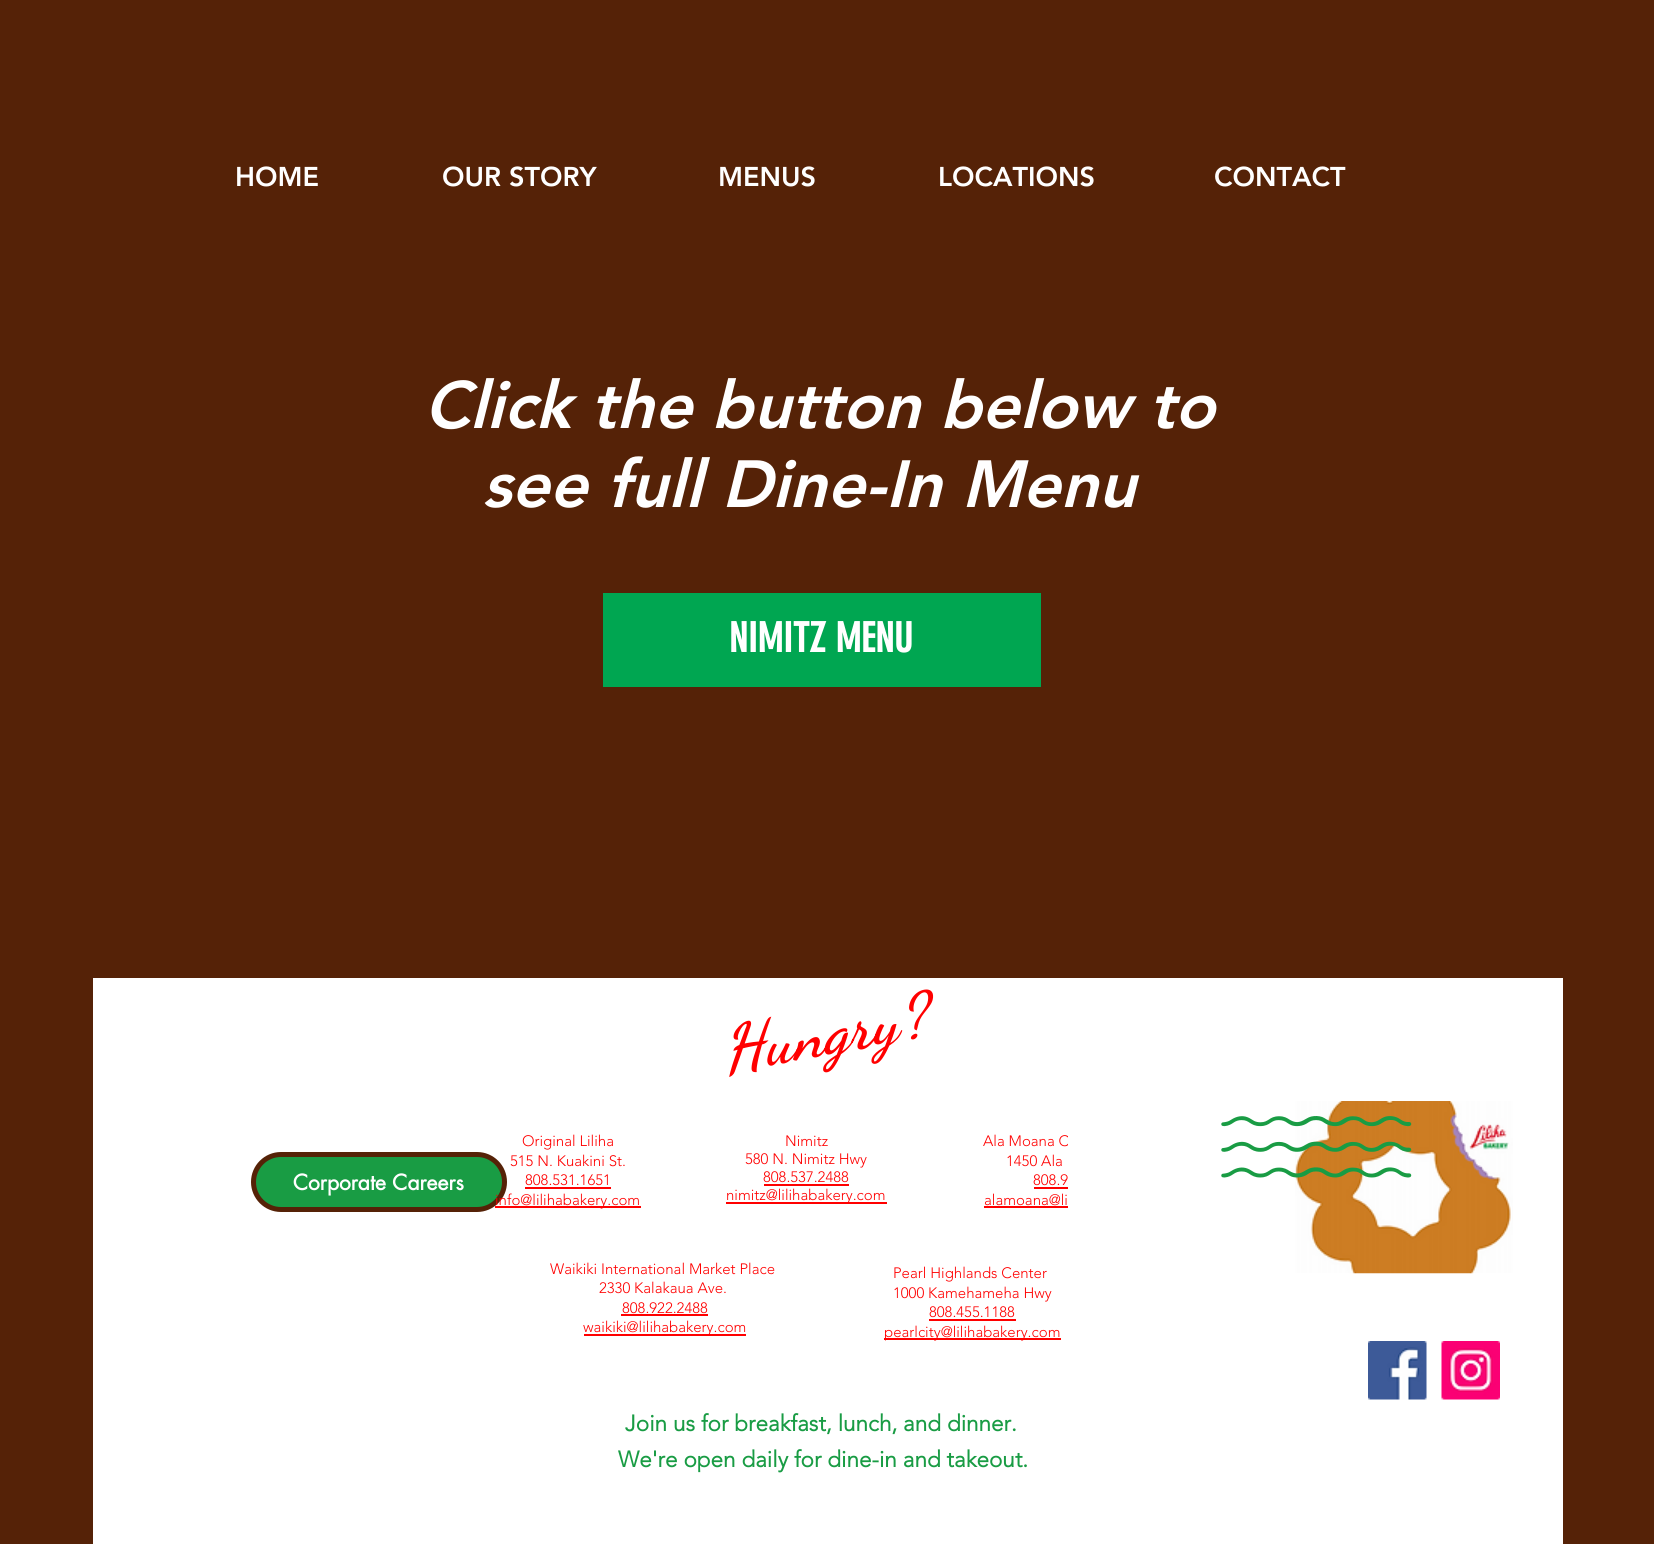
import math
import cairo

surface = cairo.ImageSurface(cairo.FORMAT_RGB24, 1654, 1544)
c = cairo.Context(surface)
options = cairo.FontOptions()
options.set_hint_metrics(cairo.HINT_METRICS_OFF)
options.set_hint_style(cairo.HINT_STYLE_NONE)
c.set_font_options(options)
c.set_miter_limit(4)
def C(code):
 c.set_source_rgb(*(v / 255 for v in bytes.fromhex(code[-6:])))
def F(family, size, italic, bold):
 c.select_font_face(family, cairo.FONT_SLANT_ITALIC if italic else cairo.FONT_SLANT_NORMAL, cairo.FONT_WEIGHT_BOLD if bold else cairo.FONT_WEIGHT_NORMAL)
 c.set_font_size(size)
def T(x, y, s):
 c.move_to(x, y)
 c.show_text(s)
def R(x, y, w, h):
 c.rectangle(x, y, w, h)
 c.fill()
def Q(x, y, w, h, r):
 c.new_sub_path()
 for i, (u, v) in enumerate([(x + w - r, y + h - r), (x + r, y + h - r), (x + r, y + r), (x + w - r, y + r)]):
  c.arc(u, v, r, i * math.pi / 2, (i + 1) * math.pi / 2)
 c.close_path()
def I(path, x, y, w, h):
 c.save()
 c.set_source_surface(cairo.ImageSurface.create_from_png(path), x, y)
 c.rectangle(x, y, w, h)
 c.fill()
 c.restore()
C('552207')
c.paint()
F('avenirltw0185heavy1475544 Black',27,0,0)
C('ffffff')
T(235,186,'HOME')
T(442,186,'OUR STORY')
T(718,186,'MENUS')
T(938,186,'LOCATIONS')
T(1214,186,'CONTACT')
F('avenirltw0185heavy1475544 Black',66,1,0)
T(424,428,'Click the button below to')
T(482,507,'see full Dine-In Menu')
C('00a651')
R(603,593,438,94)
F('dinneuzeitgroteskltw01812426',40.5,0,1)
C('ffffff')
T(729,652,'NIMITZ MENU')
R(93,978,975,566)
C('199c44')
Q(253.5,1154.5,251,55,27.5)
c.fill_preserve()
C('552207')
c.set_line_width(5)
c.stroke()
F('futura',21,0,1)
C('ffffff')
T(293,1190,'Corporate Careers')
F('Dancing Script',64.5,1,1)
C('ff0000')
c.save()
c.translate(725,1072)
c.rotate(-10 * math.pi / 180)
T(0,0,'Hungry?')
c.restore()
F('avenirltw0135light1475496 Light',15,0,0)
T(522,1146,'Original Liliha')
T(510,1166,'515 N. Kuakini St.')
T(525,1185,'808.531.1651')
R(525,1187,86,2)
R(495,1206,146,2)
T(495,1205,'info@lilihabakery.com')
T(785,1146,'Nimitz')
T(745,1164,'580 N. Nimitz Hwy')
T(763,1182,'808.537.2488')
R(764,1184,85,2)
R(726,1202,161,2)
T(726,1200,'nimitz@lilihabakery.com')
T(983,1146,'Ala Moana C')
T(1006,1166,'1450 Ala')
T(1033,1185,'808.9')
R(1034,1187,34,2)
T(984,1205,'alamoana@li')
R(984,1206,84,2)
T(550,1274,'Waikiki International Market Place')
T(599,1293,'2330 Kalakaua Ave.')
T(622,1313,'808.922.2488')
R(621,1314,87,2)
R(584,1334,162,2)
T(583,1332,'waikiki@lilihabakery.com')
T(893,1278,'Pearl Highlands Center')
T(893,1298,'1000 Kamehameha Hwy')
T(929,1317,'808.455.1188')
R(929,1319,87,2)
R(884,1338,177,2)
T(884,1337,'pearlcity@lilihabakery.com')
F('avenirltw0135light1475496',22.5,0,1)
C('199c44')
T(625,1431,'Join us for breakfast, lunch, and dinner.')
T(618,1467,'We\'re open daily for dine-in and takeout.')
C('ffffff')
R(1068,978,495,566)
I('1.png',1295,1101,218,173)
I('2.png',1221,1116,191,62)
I('3.png',1368,1341,59,59)
I('4.png',1441,1341,59,59)
surface.write_to_png('o.png')
